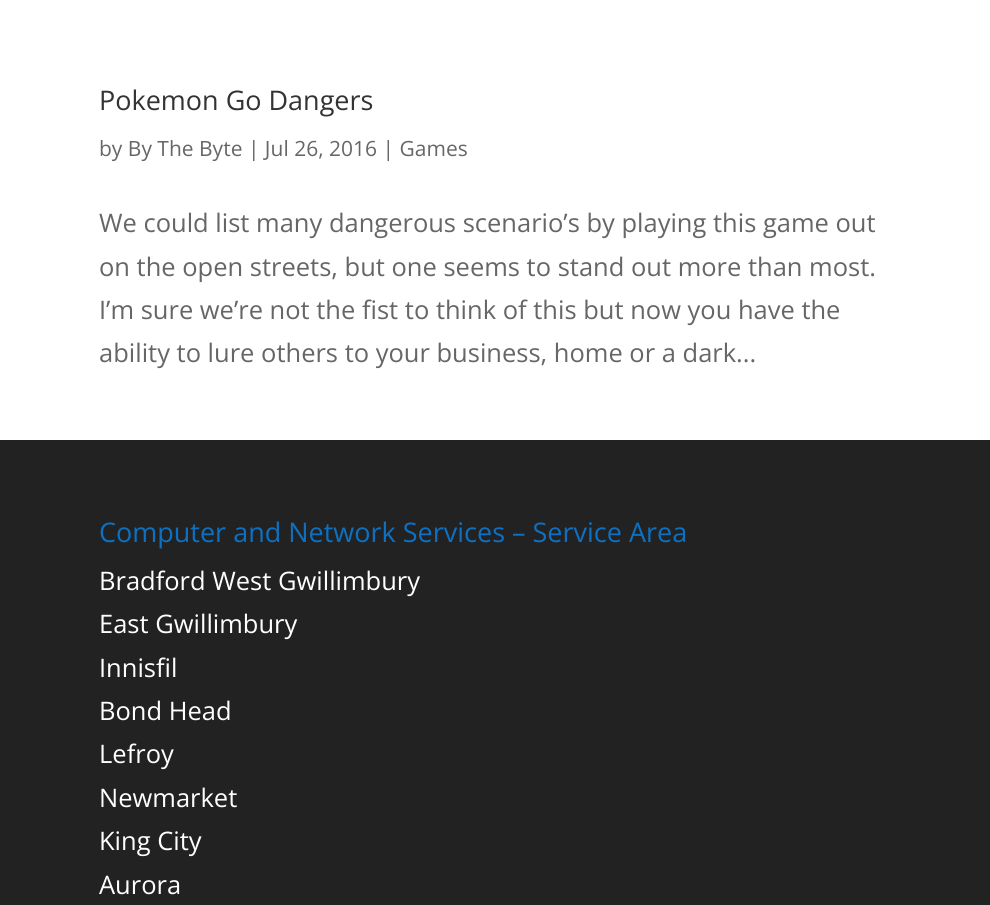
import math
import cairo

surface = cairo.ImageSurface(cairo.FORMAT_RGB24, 990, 905)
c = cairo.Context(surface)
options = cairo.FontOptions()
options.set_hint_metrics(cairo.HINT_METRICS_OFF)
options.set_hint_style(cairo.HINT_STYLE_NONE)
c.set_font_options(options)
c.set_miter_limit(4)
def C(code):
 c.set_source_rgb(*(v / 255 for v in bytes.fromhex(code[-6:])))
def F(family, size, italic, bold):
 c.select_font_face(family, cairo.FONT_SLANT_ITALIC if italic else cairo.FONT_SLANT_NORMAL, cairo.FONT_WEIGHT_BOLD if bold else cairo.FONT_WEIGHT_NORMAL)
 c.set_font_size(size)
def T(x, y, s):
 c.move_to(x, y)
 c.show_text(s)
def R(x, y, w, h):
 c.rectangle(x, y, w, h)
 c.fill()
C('ffffff')
c.paint()
F('Open Sans',27,0,0)
C('333333')
T(99,110,'Pokemon Go Dangers')
F('Open Sans',21,0,0)
C('666666')
T(99,156,'by By The Byte | Jul 26, 2016 | Games')
F('Open Sans',25.5,0,0)
T(99,232,'We could list many dangerous scenario’s by playing this game out')
T(99,276,'on the open streets, but one seems to stand out more than most.')
T(99,319,'I’m sure we’re not the fist to think of this but now you have the')
T(99,362,'ability to lure others to your business, home or a dark...')
C('222222')
R(0,440,990,465)
F('Open Sans',27,0,0)
C('0c71c3')
T(99,542,'Computer and Network Services – Service Area')
F('Open Sans',25.5,0,0)
C('ffffff')
T(99,590,'Bradford West Gwillimbury')
T(99,633,'East Gwillimbury')
T(99,677,'Innisfil')
T(99,720,'Bond Head')
T(99,763,'Lefroy')
T(99,807,'Newmarket')
T(99,850,'King City')
T(99,894,'Aurora')
surface.write_to_png('o.png')
